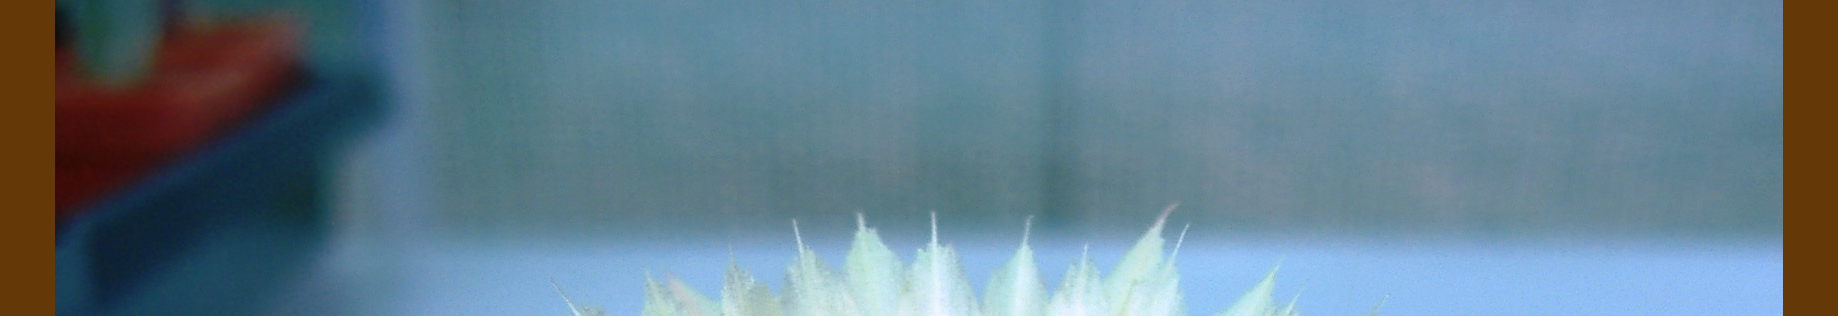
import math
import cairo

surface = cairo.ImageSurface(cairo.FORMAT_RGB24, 1838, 316)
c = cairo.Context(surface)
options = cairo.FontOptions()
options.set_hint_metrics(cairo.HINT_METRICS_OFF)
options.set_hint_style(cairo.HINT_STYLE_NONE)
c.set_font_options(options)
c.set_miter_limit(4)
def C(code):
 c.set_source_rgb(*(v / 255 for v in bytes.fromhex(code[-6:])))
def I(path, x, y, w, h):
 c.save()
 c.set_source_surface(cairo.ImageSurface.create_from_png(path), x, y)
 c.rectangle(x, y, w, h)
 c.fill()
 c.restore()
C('643807')
c.paint()
I('1.png',55,0,1728,316)
surface.write_to_png('o.png')
